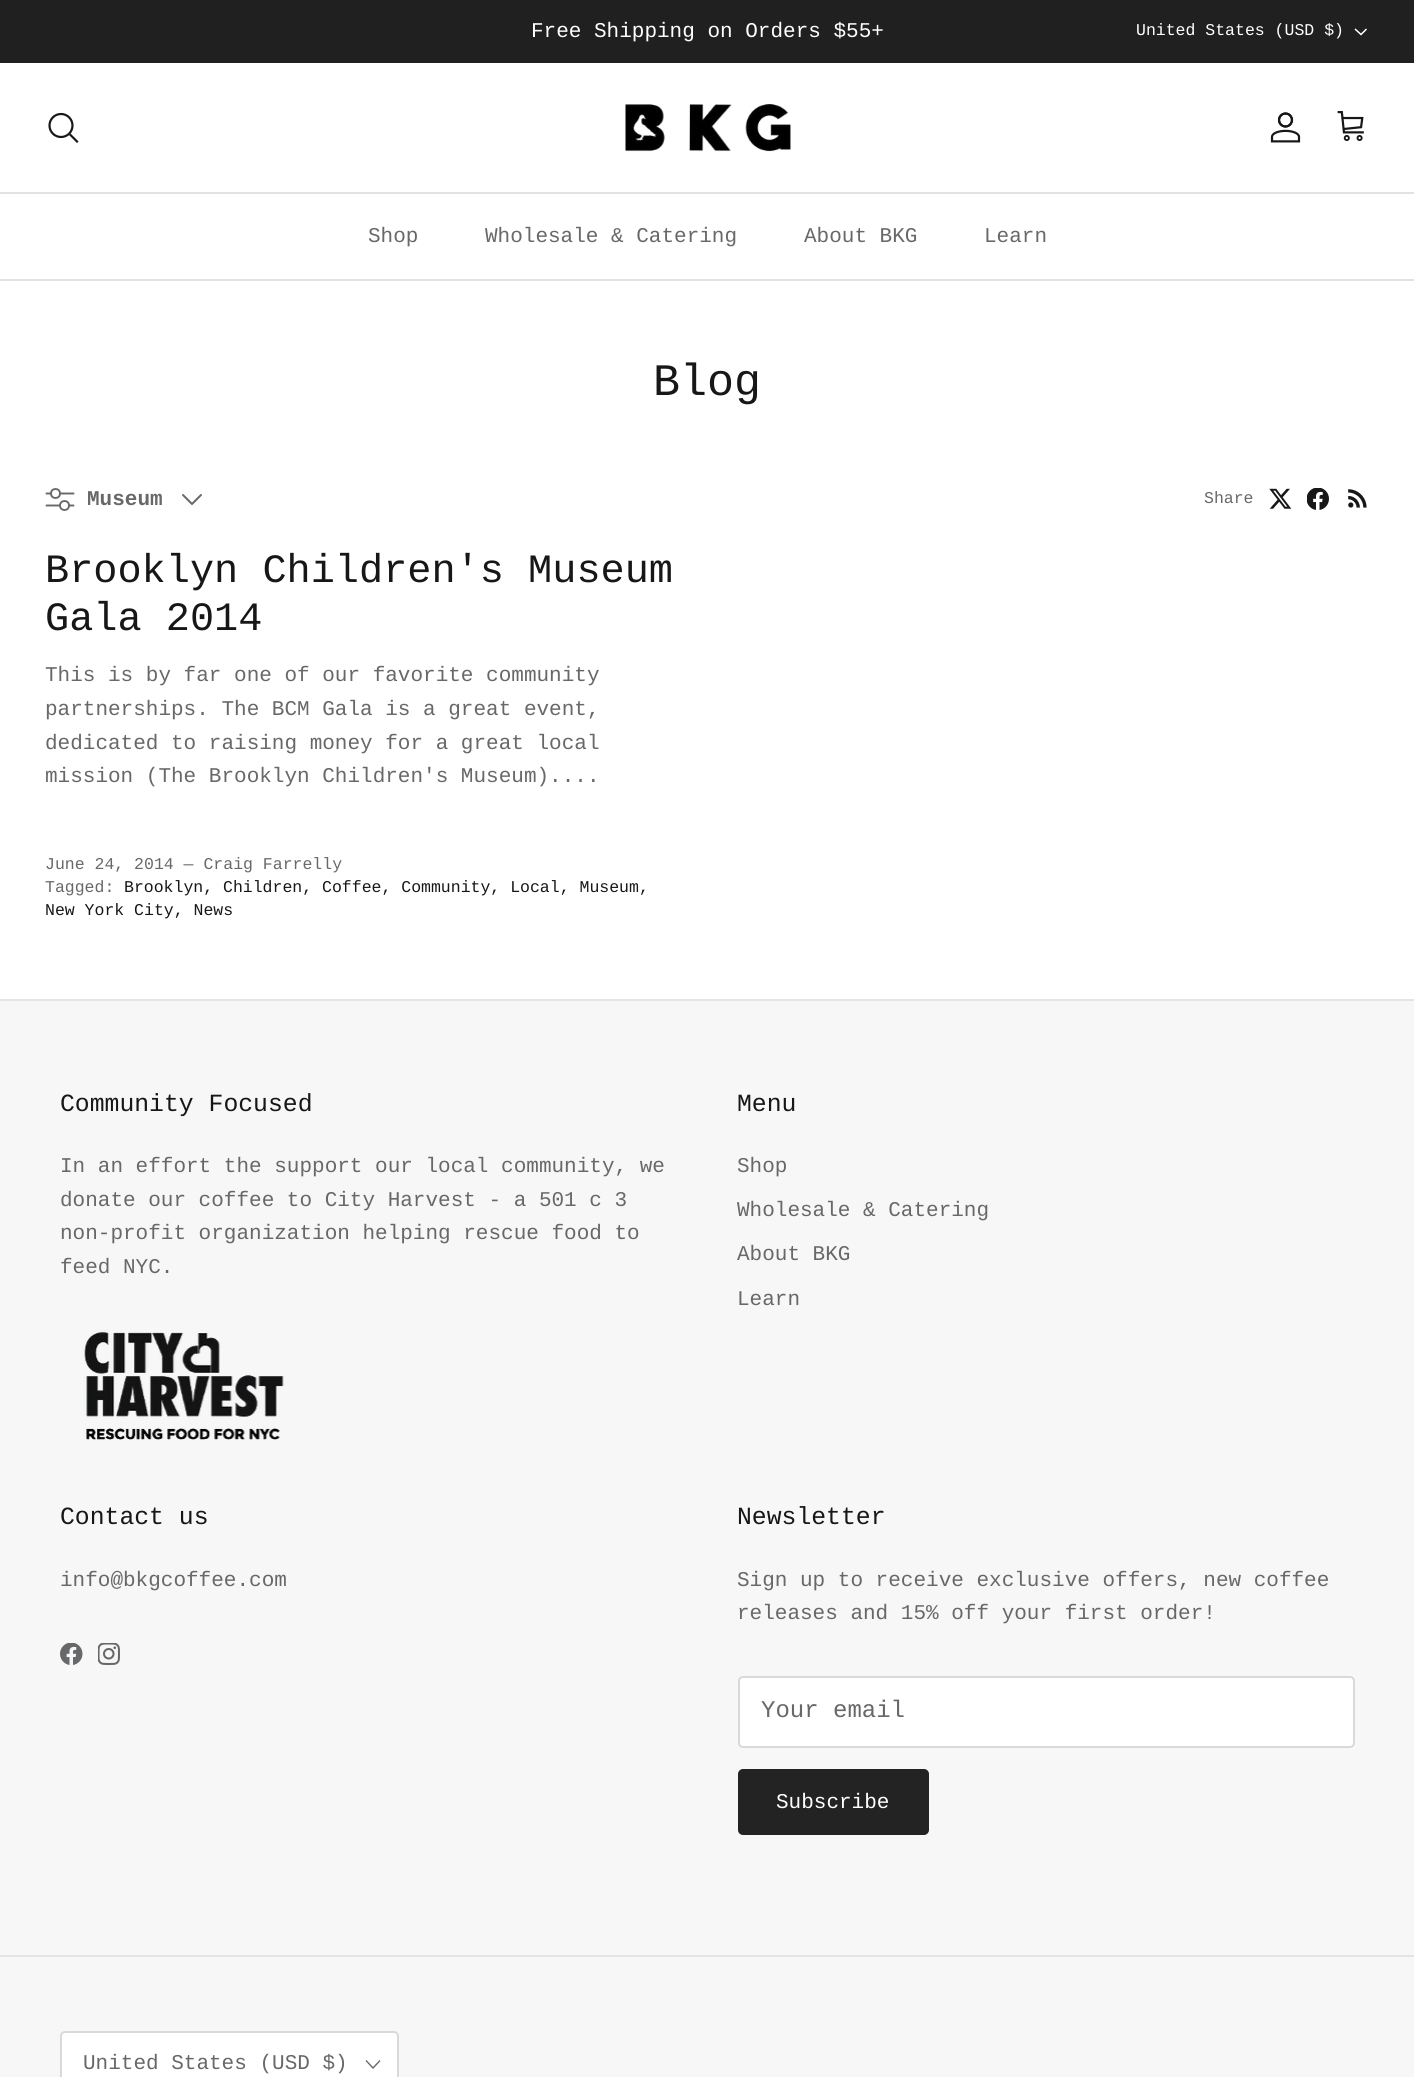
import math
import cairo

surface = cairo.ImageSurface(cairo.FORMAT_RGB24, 1414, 2077)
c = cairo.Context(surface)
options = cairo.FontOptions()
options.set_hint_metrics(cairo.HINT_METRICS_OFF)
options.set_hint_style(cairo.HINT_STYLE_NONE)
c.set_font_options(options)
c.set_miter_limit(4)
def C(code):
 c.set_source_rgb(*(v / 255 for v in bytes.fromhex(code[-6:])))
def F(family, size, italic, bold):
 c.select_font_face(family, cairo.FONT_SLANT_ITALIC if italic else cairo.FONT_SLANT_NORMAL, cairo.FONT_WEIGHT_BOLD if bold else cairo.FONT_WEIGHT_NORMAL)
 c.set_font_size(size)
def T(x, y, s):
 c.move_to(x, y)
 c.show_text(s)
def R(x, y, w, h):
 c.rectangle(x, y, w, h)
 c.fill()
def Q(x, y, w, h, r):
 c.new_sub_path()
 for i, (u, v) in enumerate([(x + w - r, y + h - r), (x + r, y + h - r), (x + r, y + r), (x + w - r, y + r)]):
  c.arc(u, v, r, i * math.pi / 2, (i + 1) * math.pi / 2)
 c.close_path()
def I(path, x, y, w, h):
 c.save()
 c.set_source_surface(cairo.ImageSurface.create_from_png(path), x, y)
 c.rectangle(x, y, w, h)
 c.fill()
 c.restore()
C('ffffff')
c.paint()
C('202020')
R(0,0,1414,63)
F('Liberation Mono',21,0,0)
C('ffffff')
T(531,37,'Free Shipping on Orders $55+')
F('Liberation Mono',16.5,0,0)
T(1136,35,'United States (USD $)')
c.new_path()
c.move_to(1366.5,29)
c.line_to(1361,34.5)
c.line_to(1355,29)
c.set_line_width(1.5)
c.stroke()
C('e2e2e2')
R(0,192,1414,2)
c.arc(61,125.5,11.5,0,2 * math.pi)
C('171717')
c.set_line_width(2.2)
c.stroke()
c.new_path()
c.move_to(70.5,135)
c.line_to(77,141.5)
c.set_line_cap(cairo.LINE_CAP_SQUARE)
c.stroke()
I('1.png',625,104,166,48)
I('2.png',1270,112,31,31)
I('3.png',1337,111,27,30)
C('e2e2e2')
R(0,279,1414,2)
F('Liberation Mono',21,0,0)
C('676869')
T(368,242,'Shop')
T(485,242,'Wholesale & Catering')
T(804,242,'About BKG')
T(984,242,'Learn')
F('Liberation Mono',45,0,0)
C('171717')
T(653,395,'Blog')
c.new_path()
c.move_to(46.5,493.5)
c.line_to(73.5,493.5)
c.move_to(46.5,505.5)
c.line_to(73.5,505.5)
C('676869')
c.set_line_width(1.9)
c.set_line_cap(cairo.LINE_CAP_ROUND)
c.set_line_join(cairo.LINE_JOIN_ROUND)
c.stroke()
C('ffffff')
c.arc(55.5,493.5,4.5,0,2 * math.pi)
c.fill_preserve()
C('676869')
c.set_line_cap(cairo.LINE_CAP_BUTT)
c.set_line_join(cairo.LINE_JOIN_MITER)
c.stroke()
C('ffffff')
c.arc(64.5,505.5,4.5,0,2 * math.pi)
c.fill_preserve()
C('676869')
c.stroke()
F('Liberation Mono',21,0,1)
T(87,505,'Museum')
c.new_path()
c.move_to(183,495)
c.line_to(192,504)
c.line_to(201,495)
c.set_line_width(2)
c.set_line_cap(cairo.LINE_CAP_ROUND)
c.set_line_join(cairo.LINE_JOIN_ROUND)
c.stroke()
F('Liberation Mono',16.5,0,0)
T(1204,503,'Share')
I('4.png',1269,488,23,21)
I('5.png',1307,488,22,22)
I('6.png',1348,489,19,19)
F('Liberation Mono',40.25,0,0)
C('171717')
T(45,582,'Brooklyn Children\'s Museum')
T(45,630,'Gala 2014')
F('Liberation Mono',21,0,0)
C('676869')
T(45,681,'This is by far one of our favorite community')
T(45,715,'partnerships. The BCM Gala is a great event,')
T(45,749,'dedicated to raising money for a great local')
T(45,782,'mission (The Brooklyn Children\'s Museum)....')
F('Liberation Mono',16.5,0,0)
T(45,869,'June 24, 2014 — Craig Farrelly')
T(45,892,'Tagged:')
C('171717')
T(124,892,'Brooklyn, Children, Coffee, Community, Local, Museum,')
T(45,915,'New York City, News')
C('f7f7f8')
R(0,1001,1414,1076)
C('e4e4e4')
R(0,999,1414,2)
F('Liberation Mono',24.75,0,0)
C('171717')
T(60,1111,'Community Focused')
F('Liberation Mono',21,0,0)
C('676869')
T(60,1172,'In an effort the support our local community, we')
T(60,1206,'donate our coffee to City Harvest - a 501 c 3')
T(60,1239,'non-profit organization helping rescue food to')
T(60,1273,'feed NYC.')
I('7.png',84,1330,200,110)
F('Liberation Mono',24.75,0,0)
C('171717')
T(737,1111,'Menu')
F('Liberation Mono',21,0,0)
C('676869')
T(737,1172,'Shop')
T(737,1216,'Wholesale & Catering')
T(737,1260,'About BKG')
T(737,1305,'Learn')
F('Liberation Mono',24.75,0,0)
C('171717')
T(60,1524,'Contact us')
F('Liberation Mono',21,0,0)
C('676869')
T(60,1586,'info@bkgcoffee.com')
I('8.png',60,1643,23,22)
I('9.png',98,1643,22,22)
F('Liberation Mono',24.75,0,0)
C('171717')
T(737,1524,'Newsletter')
F('Liberation Mono',21,0,0)
C('676869')
T(737,1586,'Sign up to receive exclusive offers, new coffee')
T(737,1619,'releases and 15% off your first order!')
C('ffffff')
Q(739,1677,615,70,4)
c.fill_preserve()
C('d9d9da')
c.set_line_cap(cairo.LINE_CAP_BUTT)
c.set_line_join(cairo.LINE_JOIN_MITER)
c.stroke()
F('Liberation Mono',24,0,0)
C('676869')
T(761,1717,'Your email')
C('232323')
Q(739,1770,189,64,4)
c.fill_preserve()
c.stroke()
F('Liberation Mono',21,0,0)
C('ffffff')
T(776,1808,'Subscribe')
C('e4e4e4')
R(0,1955,1414,2)
C('ffffff')
Q(61,2032,337,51,4)
c.fill_preserve()
C('d9d9da')
c.stroke()
C('676869')
T(83,2069,'United States (USD $)')
c.new_path()
c.move_to(380,2060.5)
c.line_to(373,2068)
c.line_to(366,2060.5)
c.set_line_width(1.4)
c.stroke()
surface.write_to_png('o.png')
